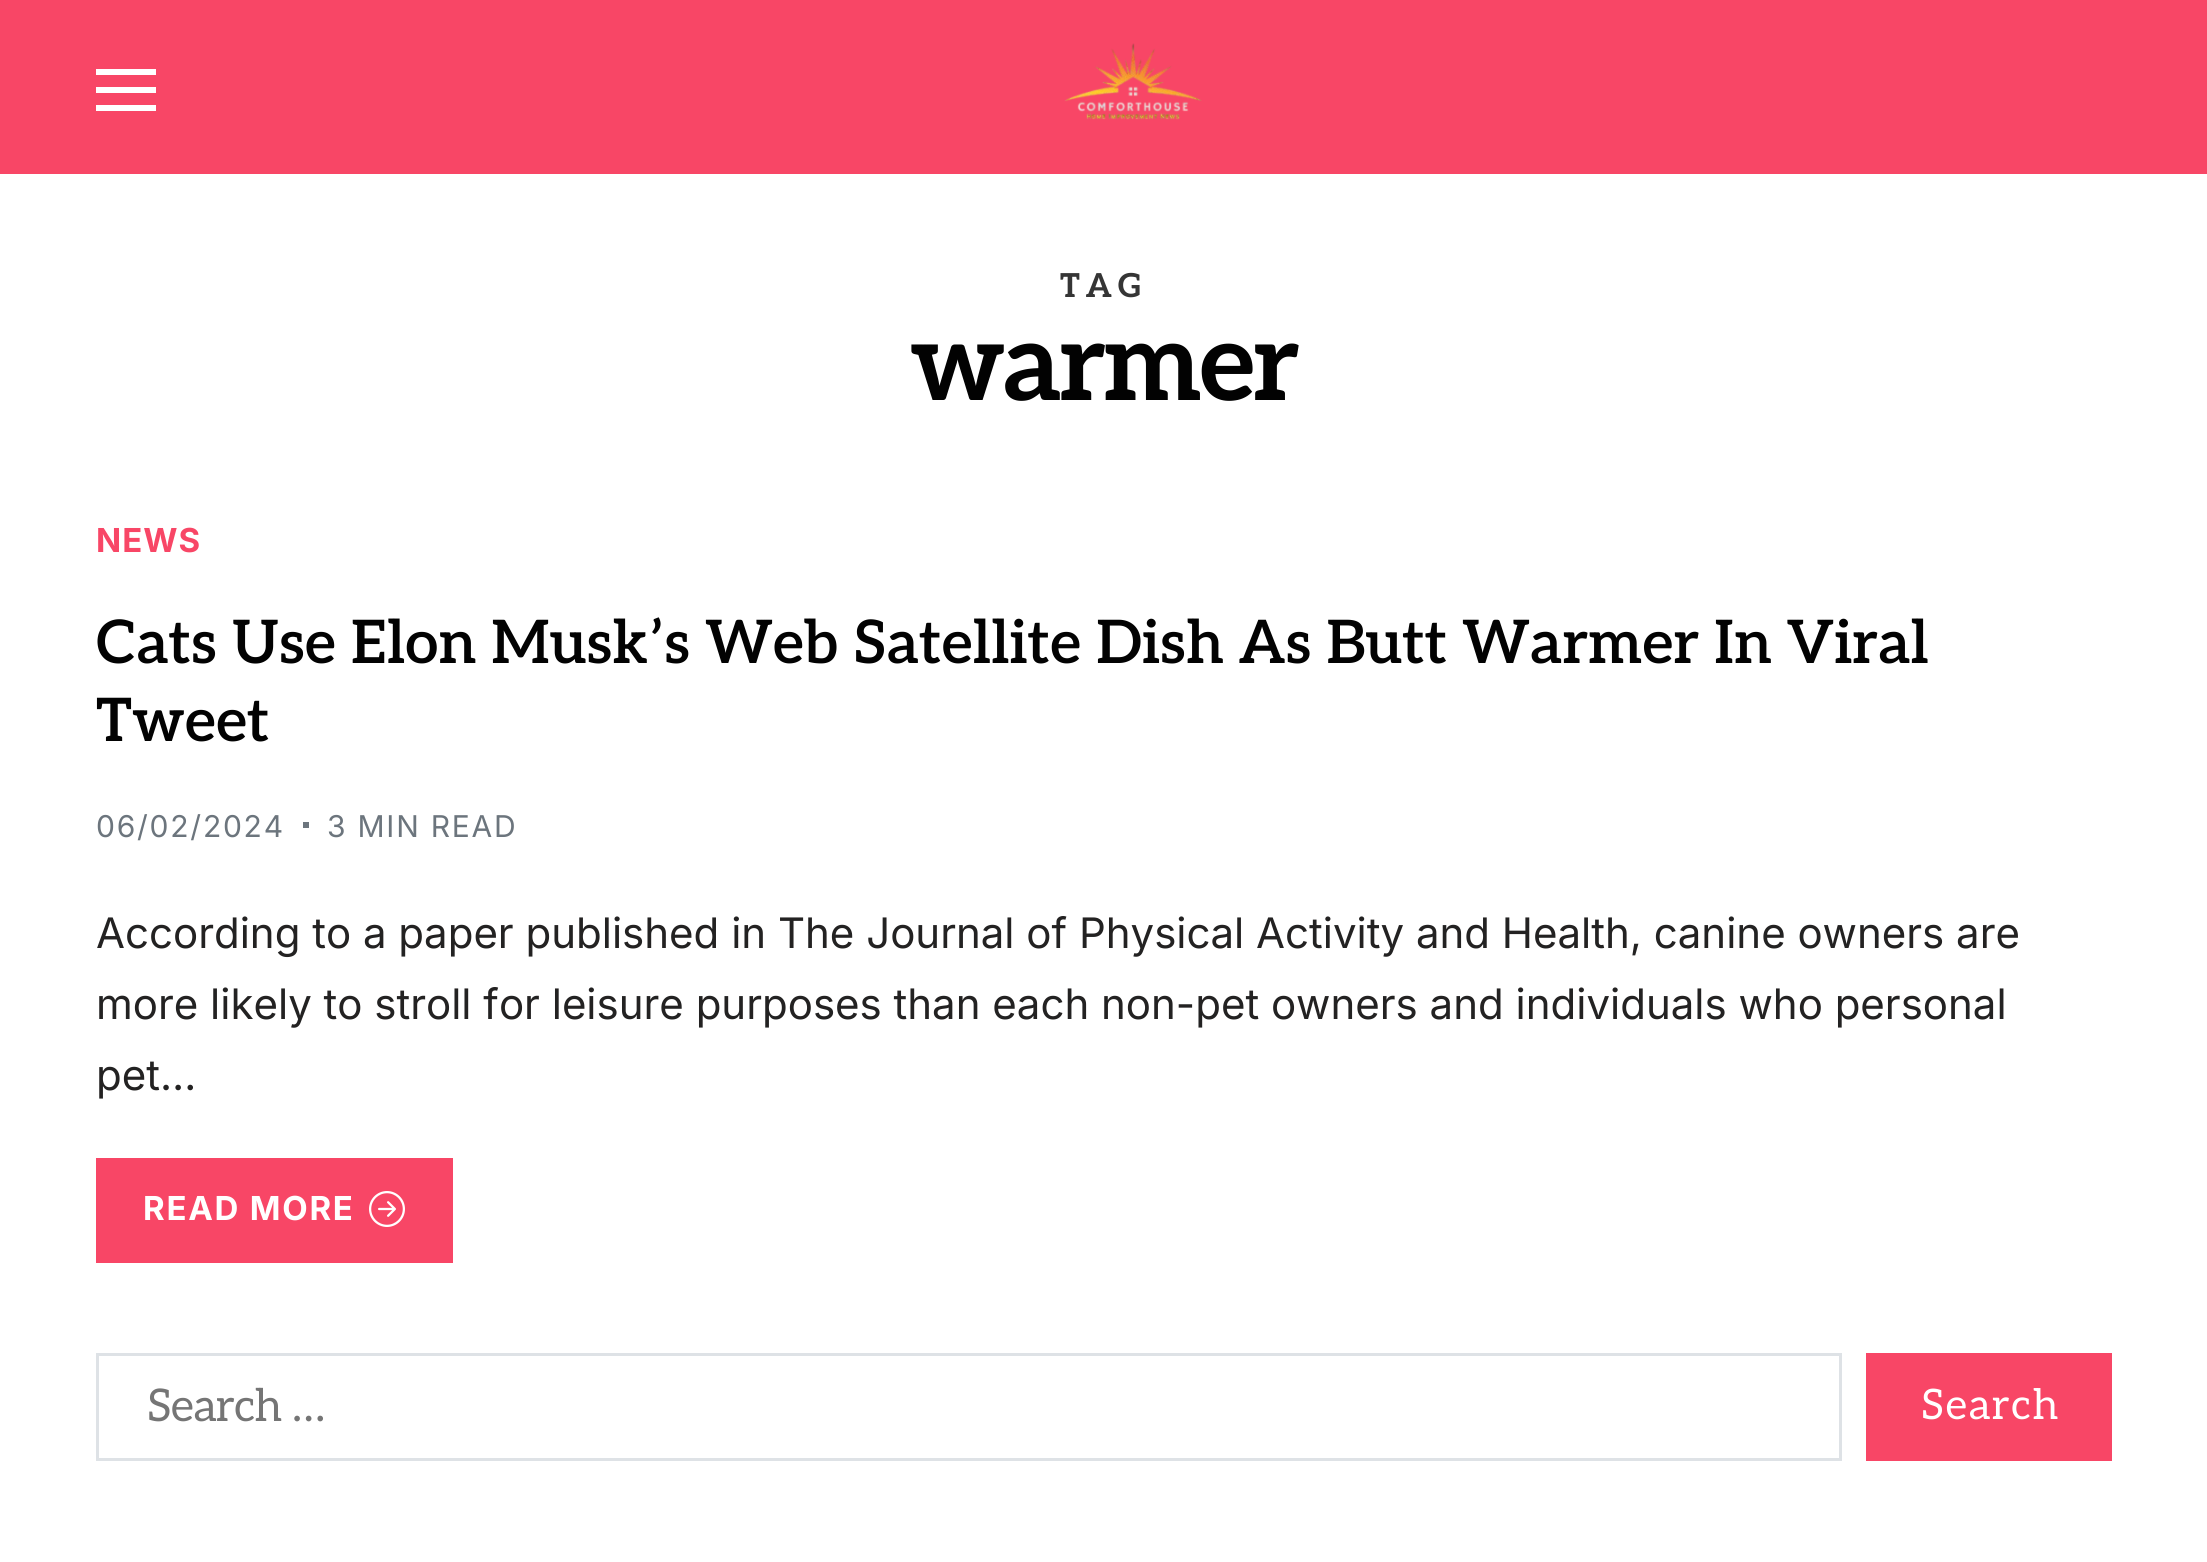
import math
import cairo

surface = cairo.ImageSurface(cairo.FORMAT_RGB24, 2207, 1562)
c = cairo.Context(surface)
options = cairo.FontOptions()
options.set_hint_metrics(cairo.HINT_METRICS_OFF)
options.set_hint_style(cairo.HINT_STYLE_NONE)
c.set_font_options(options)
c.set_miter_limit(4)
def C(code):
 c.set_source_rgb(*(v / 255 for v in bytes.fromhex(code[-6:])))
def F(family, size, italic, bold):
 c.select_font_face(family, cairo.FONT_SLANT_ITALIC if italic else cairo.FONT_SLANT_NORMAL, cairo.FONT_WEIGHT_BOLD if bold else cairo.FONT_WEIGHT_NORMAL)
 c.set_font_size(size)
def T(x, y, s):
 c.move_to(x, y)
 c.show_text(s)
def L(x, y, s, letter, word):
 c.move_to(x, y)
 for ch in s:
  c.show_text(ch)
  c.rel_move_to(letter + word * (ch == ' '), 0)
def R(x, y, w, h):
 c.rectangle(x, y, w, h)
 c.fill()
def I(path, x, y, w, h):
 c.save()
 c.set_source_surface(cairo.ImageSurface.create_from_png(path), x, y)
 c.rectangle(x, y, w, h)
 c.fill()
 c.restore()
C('ffffff')
c.paint()
C('f84666')
R(0,0,2207,174)
C('ffffff')
R(96,69,60,6)
R(96,87,60,6)
R(96,105,60,6)
I('1.png',1064,43,138,77)
F('Aleo',33,0,1)
C('353535')
L(1060,297,'TAG',6,0)
F('Aleo',108,0,1)
C('020202')
L(910,400,'warmer',-3,0)
F('Inter',33,0,1)
C('f84666')
L(96,552,'NEWS',1,0)
F('Aleo SemiBold',60,0,0)
C('020202')
T(96,663,'Cats Use Elon Musk’s Web Satellite Dish As Butt Warmer In Viral')
T(96,741,'Tweet')
F('Inter',30,0,0)
C('6c757d')
L(96,837,'06/02/2024',1.75,0)
R(303,822,6,6)
L(327,837,'3 MIN READ',1.75,0)
F('Inter',42,0,0)
C('232222')
T(96,948,'According to a paper published in The Journal of Physical Activity and Health, canine owners are')
T(96,1019,'more likely to stroll for leisure purposes than each non-pet owners and individuals who personal')
T(96,1090,'pet…')
C('f84666')
R(96,1158,357,105)
F('Inter',33,0,1)
C('ffffff')
L(143,1220,'READ MORE',1.75,0)
I('2.png',369,1191,36,36)
c.rectangle(97.5,1354.5,1743,105)
C('dee2e6')
c.set_line_width(3)
c.stroke()
F('Aleo',45,0,0)
C('757575')
L(147,1421,'Search …',-.75,0)
C('f84666')
R(1866,1353,246,108)
F('Aleo',42,0,0)
C('ffffff')
L(1921,1419,'Search',1.5,0)
surface.write_to_png('o.png')
